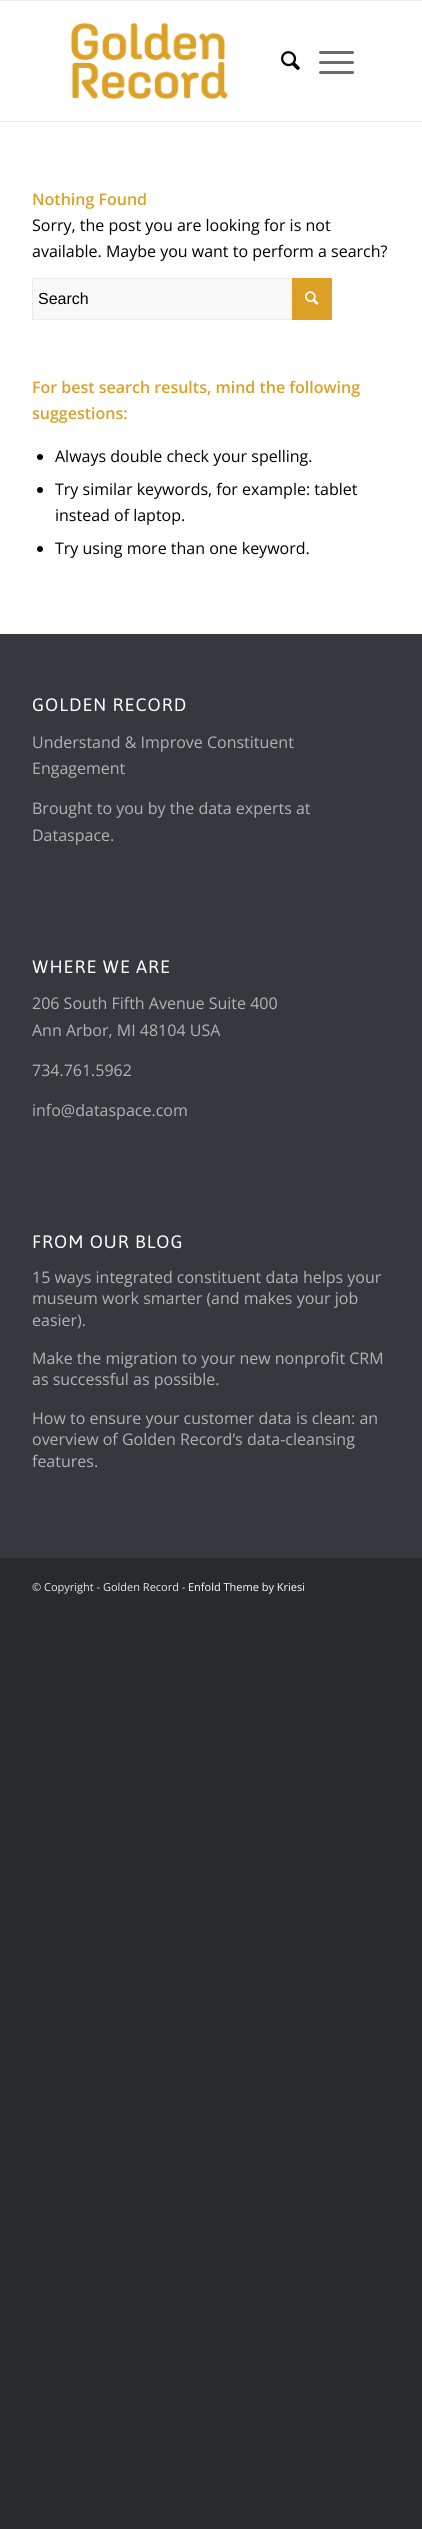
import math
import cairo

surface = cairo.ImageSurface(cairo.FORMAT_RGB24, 422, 2529)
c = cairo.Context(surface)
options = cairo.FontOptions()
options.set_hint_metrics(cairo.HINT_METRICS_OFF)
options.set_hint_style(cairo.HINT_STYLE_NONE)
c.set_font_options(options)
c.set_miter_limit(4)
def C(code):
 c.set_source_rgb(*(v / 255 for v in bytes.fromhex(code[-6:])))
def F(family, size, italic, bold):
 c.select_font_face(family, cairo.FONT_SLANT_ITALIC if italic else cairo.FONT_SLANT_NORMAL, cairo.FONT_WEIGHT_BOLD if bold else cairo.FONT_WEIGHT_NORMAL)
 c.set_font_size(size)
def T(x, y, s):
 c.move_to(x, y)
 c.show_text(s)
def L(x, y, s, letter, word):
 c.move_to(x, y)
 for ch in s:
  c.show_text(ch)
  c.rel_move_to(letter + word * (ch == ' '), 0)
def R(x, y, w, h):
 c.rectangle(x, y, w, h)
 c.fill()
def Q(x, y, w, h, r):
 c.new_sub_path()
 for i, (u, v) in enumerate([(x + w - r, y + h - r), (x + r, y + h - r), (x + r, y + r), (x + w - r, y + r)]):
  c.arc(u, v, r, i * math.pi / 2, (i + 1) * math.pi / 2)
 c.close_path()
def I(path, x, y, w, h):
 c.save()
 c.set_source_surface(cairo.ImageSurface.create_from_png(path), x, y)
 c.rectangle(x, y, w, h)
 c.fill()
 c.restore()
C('282b2e')
c.paint()
C('ebebeb')
R(0,0,422,1)
R(0,121,422,1)
C('ffffff')
R(0,1,422,120)
I('1.png',71,23,157,77)
I('2.png',281,51,19,20)
C('6b6b6b')
Q(319,61,35,3,1.5)
c.fill()
Q(319,51,35,3,1.5)
c.fill()
Q(319,71,35,3,1.5)
c.fill()
C('ffffff')
R(0,122,422,512)
F('Open Sans SemiBold',16,0,0)
C('dca027')
T(32,205,'Nothing Found')
F('Open Sans',16,0,0)
C('000000')
T(32,231,'Sorry, the post you are looking for is not')
T(32,257,'available. Maybe you want to perform a search?')
C('f8f8f8')
R(33,279,259,40)
c.rectangle(32.5,278.5,299,41)
C('ebebeb')
c.set_line_width(1)
c.stroke()
F('Liberation Sans',16,0,0)
C('000000')
T(38,304,'Search')
C('dca027')
R(292,278,40,42)
I('3.png',305,291,14,14)
F('Open Sans SemiBold',16,0,0)
T(32,393,'For best search results, mind the following')
T(32,419,'suggestions:')
C('000000')
c.new_path()
c.arc(40,457,3,0,2 * math.pi)
c.fill()
F('Open Sans',16,0,0)
T(55,462,'Always double check your spelling.')
c.new_path()
c.arc(40,490,3,0,2 * math.pi)
c.fill()
T(55,495,'Try similar keywords, for example: tablet')
T(55,521,'instead of laptop.')
c.new_path()
c.arc(40,549,3,0,2 * math.pi)
c.fill()
T(55,554,'Try using more than one keyword.')
C('35383c')
R(0,634,422,924)
F('Asap',18,0,0)
C('ffffff')
L(32,711,'GOLDEN RECORD',1,0)
F('Open Sans',16,0,0)
C('b3b3b3')
T(32,748,'Understand & Improve Constituent')
T(32,774,'Engagement')
T(32,814,'Brought to you by the data experts at')
T(32,841,'Dataspace.')
F('Asap',18,0,0)
C('ffffff')
L(32,973,'WHERE WE ARE',1,0)
F('Open Sans',16,0,0)
C('b3b3b3')
T(32,1009,'206 South Fifth Avenue Suite 400')
T(32,1036,'Ann Arbor, MI 48104 USA')
T(32,1076,'734.761.5962')
T(32,1116,'info@dataspace.com')
F('Asap',18,0,0)
C('ffffff')
L(32,1248,'FROM OUR BLOG',1,0)
F('Open Sans',16,0,0)
C('b3b3b3')
T(32,1283,'15 ways integrated constituent data helps your')
T(32,1304,'museum work smarter (and makes your job')
T(32,1326,'easier).')
T(32,1364,'Make the migration to your new nonprofit CRM')
T(32,1385,'as successful as possible.')
T(32,1424,'How to ensure your customer data is clean: an')
T(32,1445,'overview of Golden Record’s data-cleansing')
T(32,1467,'features.')
F('Open Sans',11,0,0)
C('e8e8e8')
T(32,1591,'© Copyright - Golden Record -')
C('ffffff')
T(188,1591,'Enfold Theme by Kriesi')
surface.write_to_png('o.png')
